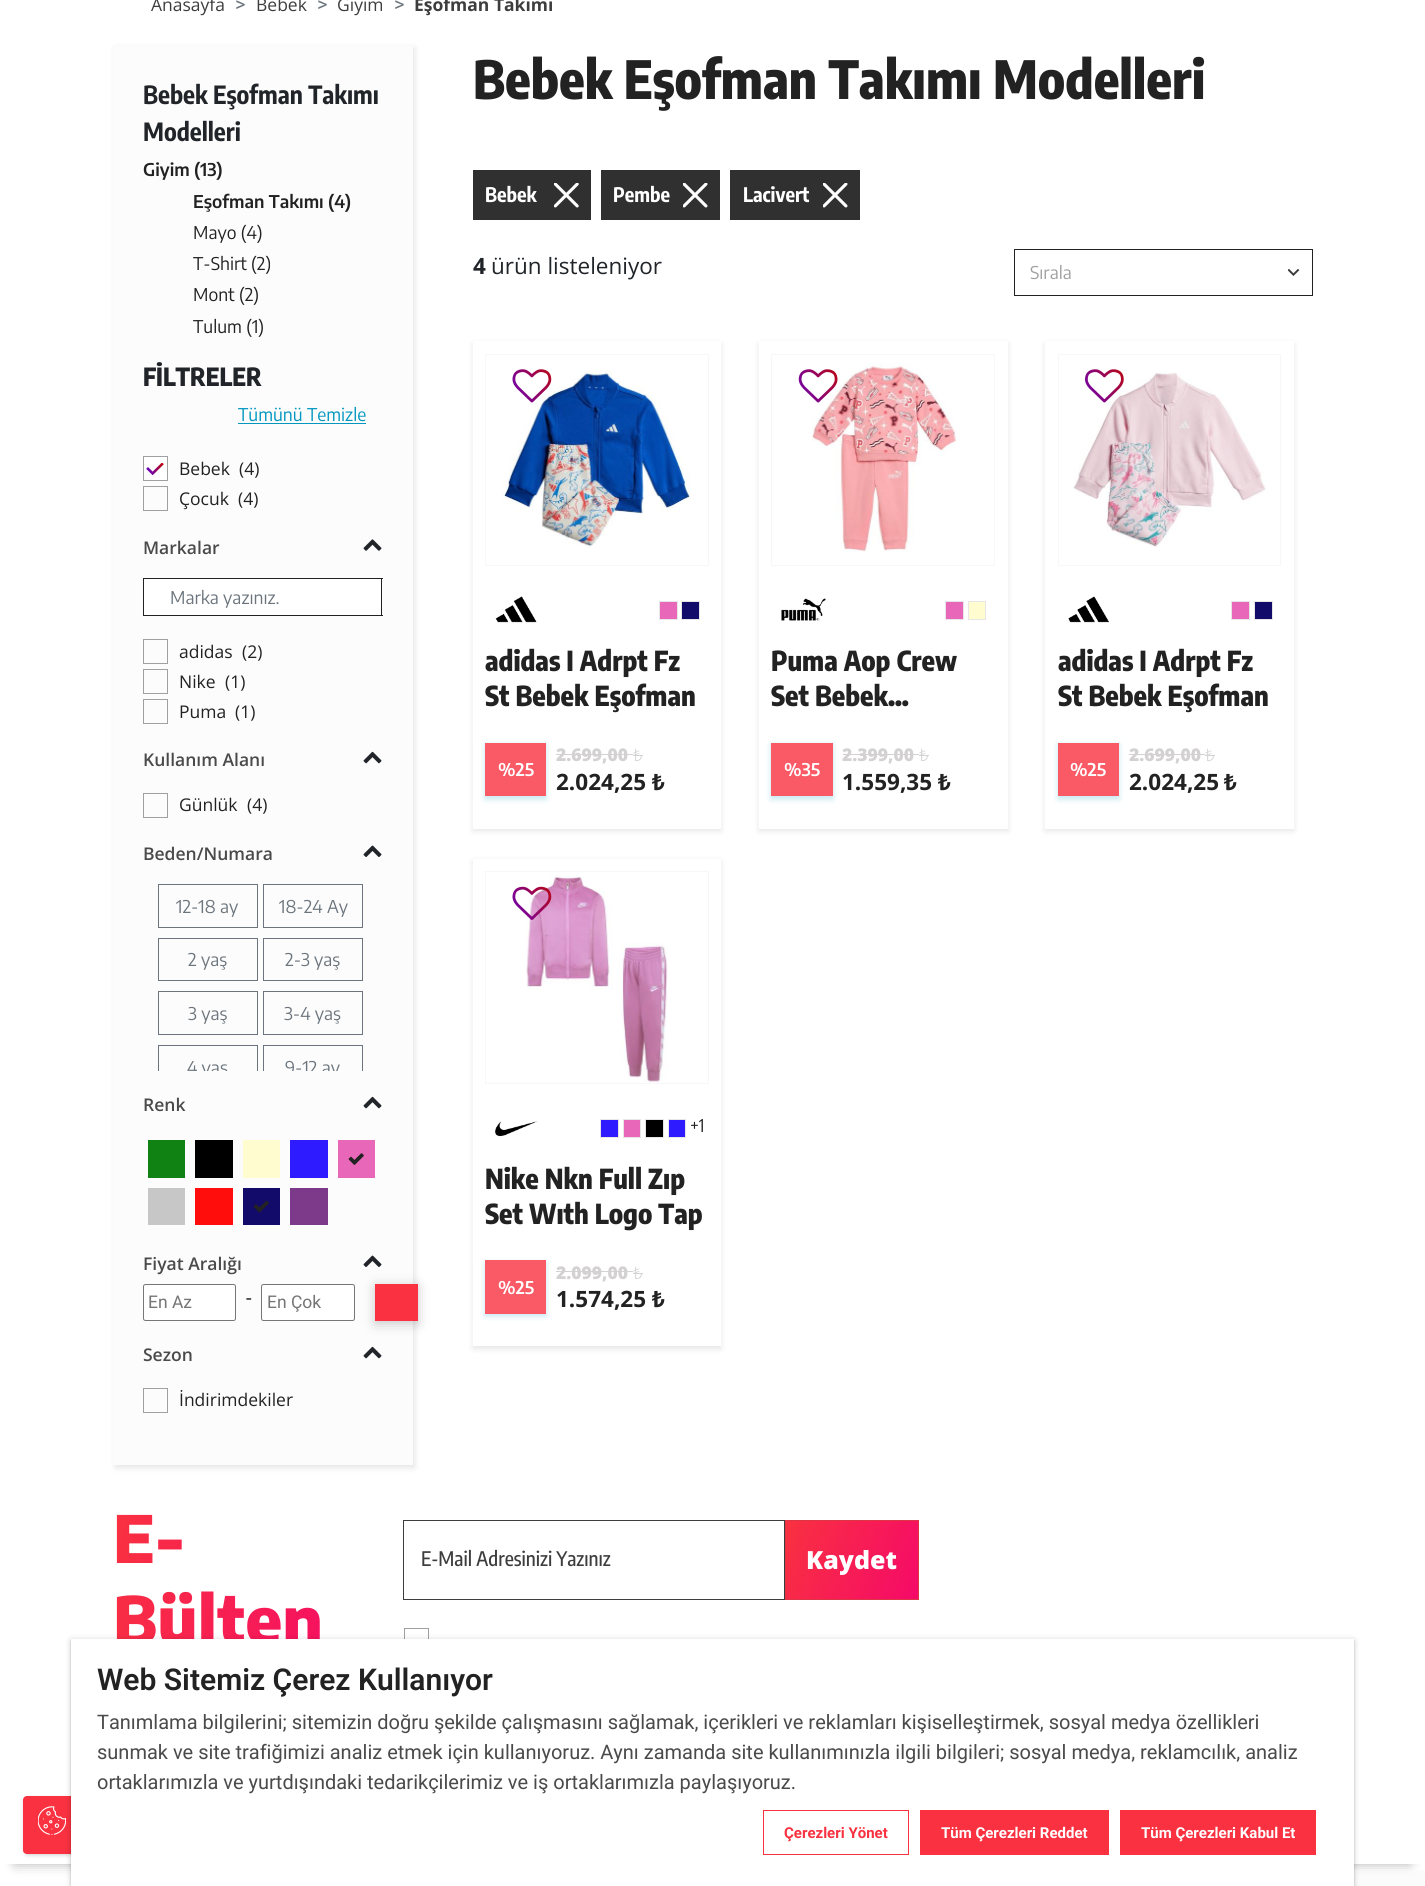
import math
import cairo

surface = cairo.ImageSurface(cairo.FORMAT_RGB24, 1425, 1886)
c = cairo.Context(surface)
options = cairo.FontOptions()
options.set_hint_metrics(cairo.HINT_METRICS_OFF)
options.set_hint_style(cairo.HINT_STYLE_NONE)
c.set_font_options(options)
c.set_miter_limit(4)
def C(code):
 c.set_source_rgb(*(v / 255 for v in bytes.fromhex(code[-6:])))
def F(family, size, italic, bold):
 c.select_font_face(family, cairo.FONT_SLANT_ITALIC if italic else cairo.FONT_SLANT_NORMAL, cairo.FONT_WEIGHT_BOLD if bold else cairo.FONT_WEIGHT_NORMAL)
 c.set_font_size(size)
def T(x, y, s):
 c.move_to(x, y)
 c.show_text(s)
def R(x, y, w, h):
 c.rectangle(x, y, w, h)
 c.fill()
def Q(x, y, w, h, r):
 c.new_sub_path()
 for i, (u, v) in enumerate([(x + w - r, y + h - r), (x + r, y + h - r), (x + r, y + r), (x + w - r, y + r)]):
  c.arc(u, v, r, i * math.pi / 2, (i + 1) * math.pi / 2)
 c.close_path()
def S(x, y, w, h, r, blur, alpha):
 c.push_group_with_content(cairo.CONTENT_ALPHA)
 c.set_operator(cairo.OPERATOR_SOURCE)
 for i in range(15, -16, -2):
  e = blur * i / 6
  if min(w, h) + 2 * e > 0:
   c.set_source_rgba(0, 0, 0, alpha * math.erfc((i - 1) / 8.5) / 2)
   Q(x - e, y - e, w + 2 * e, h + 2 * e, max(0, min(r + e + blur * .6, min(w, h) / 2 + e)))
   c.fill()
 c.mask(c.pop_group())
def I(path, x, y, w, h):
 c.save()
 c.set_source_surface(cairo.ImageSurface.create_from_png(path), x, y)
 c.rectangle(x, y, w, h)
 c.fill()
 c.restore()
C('ffffff')
c.paint()
F('Open Sans',17.5,0,0)
C('3d3d3d')
T(151,11,'Anasayfa')
F('Roboto',20,0,0)
C('6c757d')
T(235,11,'>')
F('Open Sans',17.5,0,0)
C('3d3d3d')
T(256,11,'Bebek')
F('Roboto',20,0,0)
C('6c757d')
T(317,11,'>')
F('Open Sans',17.5,0,0)
C('3d3d3d')
T(337,11,'Giyim')
F('Roboto',20,0,0)
C('6c757d')
T(394,11,'>')
F('Open Sans',17.5,0,1)
C('3d3d3d')
T(414,11,'Eşofman Takımı')
C('000000')
S(115,48,300,1420,0,3,.1)
C('fcfcfc')
R(113,46,300,1419)
F('Encode Sans Condensed',25,0,1)
C('212529')
T(143,104,'Bebek Eşofman Takımı')
T(143,141,'Modelleri')
F('Encode Sans Condensed SemiBold',17.5,0,0)
C('222222')
T(143,176,'Giyim (13)')
T(193,208,'Eşofman Takımı (4)')
F('Encode Sans Condensed',17.5,0,0)
T(193,239,'Mayo (4)')
T(193,270,'T-Shirt (2)')
T(193,301,'Mont (2)')
T(193,333,'Tulum (1)')
F('Encode Sans Condensed ExtraBold',25,0,0)
C('212529')
T(143,386,'FİLTRELER')
F('Encode Sans Condensed',17.5,0,0)
C('0197bf')
T(238,421,'Tümünü Temizle')
R(238,423,128,1)
C('ffffff')
c.rectangle(143.5,456.5,24,24)
c.fill_preserve()
C('a0a0a0')
c.set_line_width(1)
c.stroke()
F('Open Sans',17.5,0,0)
C('222222')
T(179,475,'Bebek')
T(239,475,'(4)')
I('1.png',146,463,18,12)
c.rectangle(143.5,486.5,24,24)
C('a0a0a0')
c.stroke()
C('222222')
T(179,505,'Çocuk')
T(238,505,'(4)')
F('Open Sans SemiBold',17.5,0,0)
C('4a4a4a')
T(143,554,'Markalar')
I('2.png',363,539,19,12)
C('222222')
R(143,578,240,1)
R(143,615,13,1)
R(143,578,1,38)
C('ffffff')
c.new_path()
c.move_to(149,579)
c.line_to(156,579)
c.line_to(156,615)
c.line_to(149,615)
c.curve_to(146,615,144,613,144,610)
c.line_to(144,584)
c.curve_to(144,581,146,579,149,579)
c.close_path()
c.fill()
R(156,579,225,36)
C('222222')
R(381,578,1,38)
R(155,615,228,1)
F('Encode Sans Condensed',17.5,0,0)
C('6c757d')
T(170,604,'Marka yazınız.')
c.rectangle(143.5,639.5,24,24)
C('a0a0a0')
c.stroke()
F('Open Sans',17.5,0,0)
C('222222')
T(179,658,'adidas')
T(242,658,'(2)')
c.rectangle(143.5,669.5,24,24)
C('a0a0a0')
c.stroke()
C('222222')
T(179,688,'Nike')
T(225,688,'(1)')
c.rectangle(143.5,699.5,24,24)
C('a0a0a0')
c.stroke()
C('222222')
T(179,718,'Puma')
T(235,718,'(1)')
F('Open Sans SemiBold',17.5,0,0)
C('4a4a4a')
T(143,766,'Kullanım Alanı')
I('3.png',363,751,19,13)
c.rectangle(143.5,793.5,24,24)
C('a0a0a0')
c.stroke()
F('Open Sans',17.5,0,0)
C('222222')
T(179,811,'Günlük')
T(247,811,'(4)')
F('Open Sans SemiBold',17.5,0,0)
C('4a4a4a')
T(143,860,'Beden/Numara')
I('4.png',363,845,19,12)
c.rectangle(158.5,884.5,99,43)
C('6c757d')
c.stroke()
F('Encode Sans Condensed',17.5,0,0)
T(176,913,'12-18 ay')
c.rectangle(263.5,884.5,99,43)
c.stroke()
T(279,913,'18-24 Ay')
c.rectangle(158.5,938.5,99,42)
c.stroke()
T(188,966,'2 yaş')
c.rectangle(263.5,938.5,99,42)
c.stroke()
T(285,966,'2-3 yaş')
c.rectangle(158.5,991.5,99,43)
c.stroke()
T(188,1020,'3 yaş')
c.rectangle(263.5,991.5,99,43)
c.stroke()
T(284,1020,'3-4 yaş')
c.save()
c.rectangle(143,884,240,187)
c.clip()
c.rectangle(158.5,1045.5,99,43)
c.stroke()
T(187,1074,'4 yaş')
c.rectangle(263.5,1045.5,99,43)
c.stroke()
T(285,1074,'9-12 ay')
c.restore()
F('Open Sans SemiBold',17.5,0,0)
C('4a4a4a')
T(143,1111,'Renk')
I('3.png',363,1096,19,13)
C('108213')
R(148,1140,37,38)
C('000000')
R(195,1140,38,38)
C('fffdd0')
R(243,1140,37,38)
C('2e1bff')
R(290,1140,38,38)
C('e867b9')
R(338,1140,37,38)
I('5.png',348,1153,16,12)
C('c7c7c7')
R(148,1188,37,37)
C('ff0c0c')
R(195,1188,38,37)
C('130b69')
R(243,1188,37,37)
I('6.png',253,1200,16,13)
C('7e3a8a')
R(290,1188,38,37)
C('4a4a4a')
T(143,1270,'Fiyat Aralığı')
I('4.png',363,1255,19,12)
C('ffffff')
Q(143.5,1284.5,92,36,2)
c.fill_preserve()
C('767676')
c.stroke()
F('Roboto',17.5,0,0)
C('757575')
T(148,1308,'En Az')
F('Roboto',20,0,0)
C('212529')
T(246,1305,'-')
C('ffffff')
Q(261.5,1284.5,93,36,2)
c.fill_preserve()
C('767676')
c.stroke()
F('Roboto',17.5,0,0)
C('757575')
T(267,1308,'En Çok')
C('000000')
S(375,1286,43,38,0,6,.2)
C('f93140')
R(375,1284,43,37)
F('Open Sans SemiBold',17.5,0,0)
C('4a4a4a')
T(143,1361,'Sezon')
I('3.png',363,1346,19,13)
c.rectangle(143.5,1388.5,24,24)
C('a0a0a0')
c.stroke()
F('Open Sans',17.5,0,0)
C('222222')
T(179,1406,'İndirimdekiler')
F('Encode Sans Condensed ExtraBold',52.5,0,0)
T(473,99,'Bebek Eşofman Takımı Modelleri')
C('303030')
R(473,170,118,50)
F('Encode Sans Condensed',20,0,1)
C('ffffff')
T(485,202,'Bebek')
I('7.png',554,183,25,25)
C('303030')
R(601,170,119,50)
C('ffffff')
T(613,202,'Pembe')
I('8.png',683,183,25,25)
C('303030')
R(730,170,130,50)
C('ffffff')
T(743,202,'Lacivert')
I('8.png',823,183,25,25)
F('Open Sans',22.5,0,1)
C('212529')
T(473,274,'4')
F('Open Sans',22.5,0,0)
T(491,274,'ürün listeleniyor')
I('9.png',1288,269,12,7)
c.rectangle(1014.5,249.5,298,46)
C('222222')
c.stroke()
F('Encode Sans Condensed',17.5,0,0)
C('a0a0a0')
T(1030,279,'Sırala')
C('000000')
S(473,344,248,487,0,3,.1)
C('ffffff')
R(473,341,248,488)
c.rectangle(485.5,354.5,223,211)
C('f7f7f7')
c.stroke()
I('10.png',502,370,189,179)
I('11.png',512,369,40,34)
I('12.png',495,596,42,27)
C('e867b9')
c.rectangle(659.5,601.5,18,18)
c.fill_preserve()
C('e7e5e5')
c.stroke()
C('130b69')
c.rectangle(681.5,601.5,18,18)
c.fill_preserve()
C('e7e5e5')
c.stroke()
F('Encode Sans Condensed ExtraBold',27.5,0,0)
C('222222')
T(485,671,'adidas I Adrpt Fz')
T(485,706,'St Bebek Eşofman')
C('34accc')
S(485,745,61,54,0,3,.3)
C('fa5a66')
R(485,743,61,53)
F('Encode Sans Condensed SemiBold',17.5,0,0)
C('ffffff')
T(498,776,'%25')
F('Open Sans ExtraBold',17.5,0,0)
C('d3d1d2')
T(556,761,'2.699,00')
R(556,754,77,1)
F('Noto Sans Light',17,0,0)
T(633,761,'₺')
R(633,755,10,1)
F('Open Sans',22.5,0,1)
C('222222')
T(556,790,'2.024,25')
F('Noto Sans',22.5,0,1)
T(652,790,'₺')
C('000000')
S(759,344,249,487,0,3,.1)
C('ffffff')
R(759,341,249,488)
c.rectangle(771.5,354.5,223,211)
C('f7f7f7')
c.stroke()
I('13.png',812,363,145,189)
I('14.png',798,369,40,34)
I('15.png',781,598,45,23)
C('e867b9')
c.rectangle(945.5,601.5,18,18)
c.fill_preserve()
C('e7e5e5')
c.stroke()
C('fffdd0')
c.rectangle(968.5,601.5,17,18)
c.fill_preserve()
C('e7e5e5')
c.stroke()
F('Encode Sans Condensed ExtraBold',27.5,0,0)
C('222222')
T(771,671,'Puma Aop Crew')
T(771,706,'Set Bebek…')
C('34accc')
S(771,745,62,54,0,3,.3)
C('fa5a66')
R(771,743,62,53)
F('Encode Sans Condensed SemiBold',17.5,0,0)
C('ffffff')
T(784,776,'%35')
F('Open Sans ExtraBold',17.5,0,0)
C('d3d1d2')
T(842,761,'2.399,00')
R(843,754,76,1)
F('Noto Sans Light',17,0,0)
T(919,761,'₺')
R(919,755,10,1)
F('Open Sans',22.5,0,1)
C('222222')
T(842,790,'1.559,35')
F('Noto Sans',22.5,0,1)
T(938,790,'₺')
C('000000')
S(1045,344,249,487,0,3,.1)
C('ffffff')
R(1045,341,249,488)
c.rectangle(1058.5,354.5,222,211)
C('f7f7f7')
c.stroke()
I('16.png',1073,372,193,175)
I('17.png',1085,369,39,34)
I('18.png',1068,596,41,27)
C('e867b9')
c.rectangle(1231.5,601.5,18,18)
c.fill_preserve()
C('e7e5e5')
c.stroke()
C('130b69')
c.rectangle(1254.5,601.5,18,18)
c.fill_preserve()
C('e7e5e5')
c.stroke()
F('Encode Sans Condensed ExtraBold',27.5,0,0)
C('222222')
T(1058,671,'adidas I Adrpt Fz')
T(1058,706,'St Bebek Eşofman')
C('34accc')
S(1058,745,61,54,0,3,.3)
C('fa5a66')
R(1058,743,61,53)
F('Encode Sans Condensed SemiBold',17.5,0,0)
C('ffffff')
T(1070,776,'%25')
F('Open Sans ExtraBold',17.5,0,0)
C('d3d1d2')
T(1129,761,'2.699,00')
R(1129,754,76,1)
F('Noto Sans Light',17,0,0)
T(1205,761,'₺')
R(1205,755,10,1)
F('Open Sans',22.5,0,1)
C('222222')
T(1129,790,'2.024,25')
F('Noto Sans',22.5,0,1)
T(1224,790,'₺')
c.save()
c.set_fill_rule(cairo.FILL_RULE_EVEN_ODD)
c.new_path()
c.move_to(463,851)
c.line_to(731,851)
c.line_to(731,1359)
c.line_to(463,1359)
c.close_path()
c.move_to(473,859)
c.line_to(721,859)
c.line_to(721,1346)
c.line_to(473,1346)
c.close_path()
c.clip()
C('000000')
S(473,861,248,488,0,3,.1)
c.restore()
c.rectangle(485.5,871.5,223,212)
C('f7f7f7')
c.stroke()
I('19.png',526,875,142,207)
I('20.png',512,886,40,34)
I('21.png',495,1121,43,16)
C('2e1bff')
c.rectangle(600.5,1119.5,18,18)
c.fill_preserve()
C('e7e5e5')
c.stroke()
C('e867b9')
c.rectangle(623.5,1119.5,17,18)
c.fill_preserve()
C('e7e5e5')
c.stroke()
C('000000')
c.rectangle(645.5,1119.5,18,18)
c.fill_preserve()
C('e7e5e5')
c.stroke()
C('2e1bff')
c.rectangle(668.5,1119.5,17,18)
c.fill_preserve()
C('e7e5e5')
c.stroke()
F('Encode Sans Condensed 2',17.5,0,0)
C('222222')
T(690,1132,'+1')
F('Encode Sans Condensed ExtraBold',27.5,0,0)
T(485,1189,'Nike Nkn Full Zıp')
T(485,1224,'Set Wıth Logo Tap')
C('34accc')
S(485,1263,61,53,0,3,.3)
C('fa5a66')
R(485,1260,61,54)
F('Encode Sans Condensed SemiBold',17.5,0,0)
C('ffffff')
T(498,1294,'%25')
F('Open Sans ExtraBold',17.5,0,0)
C('d3d1d2')
T(556,1279,'2.099,00')
R(556,1271,77,1)
F('Noto Sans Light',17,0,0)
T(633,1279,'₺')
R(633,1273,10,1)
F('Open Sans',22.5,0,1)
C('222222')
T(556,1307,'1.574,25')
F('Noto Sans',22.5,0,1)
T(652,1307,'₺')
c.save()
c.set_fill_rule(cairo.FILL_RULE_EVEN_ODD)
c.new_path()
c.move_to(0,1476)
c.line_to(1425,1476)
c.line_to(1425,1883)
c.line_to(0,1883)
c.close_path()
c.move_to(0,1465)
c.line_to(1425,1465)
c.line_to(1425,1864)
c.line_to(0,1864)
c.close_path()
c.clip()
C('000000')
S(15,1495,1395,369,0,6,.3)
c.restore()
F('Encode Sans Condensed 2 ExtraBold',65,0,0)
gradient = cairo.LinearGradient(102,1542,395,1610)
gradient.add_color_stop_rgba(0,0.976,0.192,0.251,1)
gradient.add_color_stop_rgba(1,0.961,0.039,0.408,1)
c.set_source(gradient)
T(113,1563,'E-')
T(113,1644,'Bülten')
c.rectangle(403.5,1520.5,381,79)
C('3d3d3d')
c.stroke()
F('Encode Sans Condensed Medium',20,0,0)
T(421,1566,'E-Mail Adresinizi Yazınız')
gradient = cairo.LinearGradient(782,1530,921,1590)
gradient.add_color_stop_rgba(0,0.976,0.192,0.251,1)
gradient.add_color_stop_rgba(1,0.961,0.039,0.408,1)
c.set_source(gradient)
R(786,1521,132,78)
c.rectangle(785.5,1520.5,133,79)
C('dc3545')
c.stroke()
F('Open Sans ExtraBold',25,0,0)
C('ffffff')
T(806,1569,'Kaydet')
c.rectangle(404.5,1628.5,24,24)
C('a0a0a0')
c.stroke()
c.set_source_rgba(0.973,0.973,0.973,0.6)
R(1354,1870,71,16)
C('000000')
S(24,1798,57,57,4,2,.2)
C('f93140')
Q(23,1796,57,58,4)
c.fill()
I('22.png',38,1806,28,29)
C('000000')
S(71,1641,1283,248,0,1,.14)
S(71,1640,1283,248,0,3,.2)
C('ffffff')
R(71,1639,1283,247)
F('Roboto SemiBold',30,0,0)
C('222222')
T(97,1690,'Web Sitemiz Çerez Kullanıyor')
F('Roboto',20,0,0)
C('4a4a4a')
T(97,1729,'Tanımlama bilgilerini; sitemizin doğru şekilde çalışmasını sağlamak, içerikleri ve reklamları kişiselleştirmek, sosyal medya özellikleri')
T(97,1759,'sunmak ve site trafiğimizi analiz etmek için kullanıyoruz. Aynı zamanda site kullanımınızla ilgili bilgileri; sosyal medya, reklamcılık, analiz')
T(97,1789,'ortaklarımızla ve yurtdışındaki tedarikçilerimiz ve iş ortaklarımızla paylaşıyoruz.')
c.rectangle(763.5,1810.5,145,44)
C('f93140')
c.stroke()
F('Roboto',15,0,1)
T(784,1838,'Çerezleri Yönet')
R(920,1810,189,45)
C('ffffff')
T(941,1838,'Tüm Çerezleri Reddet')
C('f93140')
R(1120,1810,196,45)
C('ffffff')
T(1141,1838,'Tüm Çerezleri Kabul Et')
surface.write_to_png('o.png')
